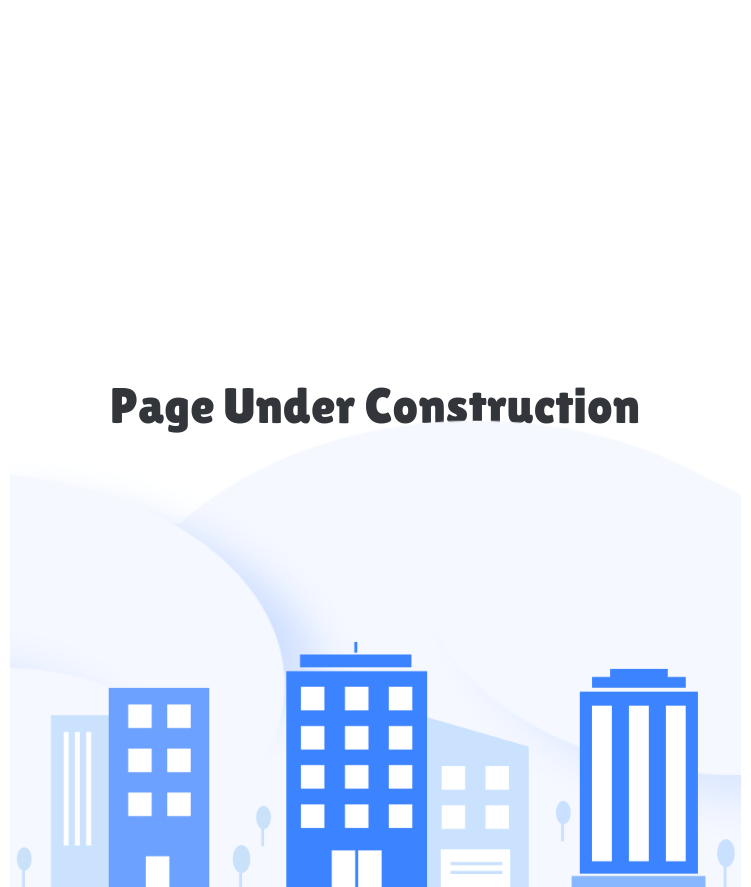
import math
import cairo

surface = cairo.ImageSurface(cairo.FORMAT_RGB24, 751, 887)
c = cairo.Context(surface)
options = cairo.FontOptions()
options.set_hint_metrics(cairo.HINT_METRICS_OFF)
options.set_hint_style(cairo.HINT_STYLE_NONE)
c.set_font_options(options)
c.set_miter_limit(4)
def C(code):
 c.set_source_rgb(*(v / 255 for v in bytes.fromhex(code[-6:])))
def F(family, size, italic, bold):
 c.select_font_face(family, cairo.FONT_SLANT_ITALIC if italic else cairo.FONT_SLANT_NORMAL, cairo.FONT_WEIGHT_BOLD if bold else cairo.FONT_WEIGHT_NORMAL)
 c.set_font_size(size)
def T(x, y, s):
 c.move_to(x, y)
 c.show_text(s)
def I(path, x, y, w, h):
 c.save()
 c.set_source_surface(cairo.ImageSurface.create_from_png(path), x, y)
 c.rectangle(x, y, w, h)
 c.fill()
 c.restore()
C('ffffff')
c.paint()
F('Lilita One',50,0,0)
C('32353a')
T(110,423,'Page Under Construction')
I('1.png',10,420,731,467)
I('2.png',16,641,719,246)
surface.write_to_png('o.png')
